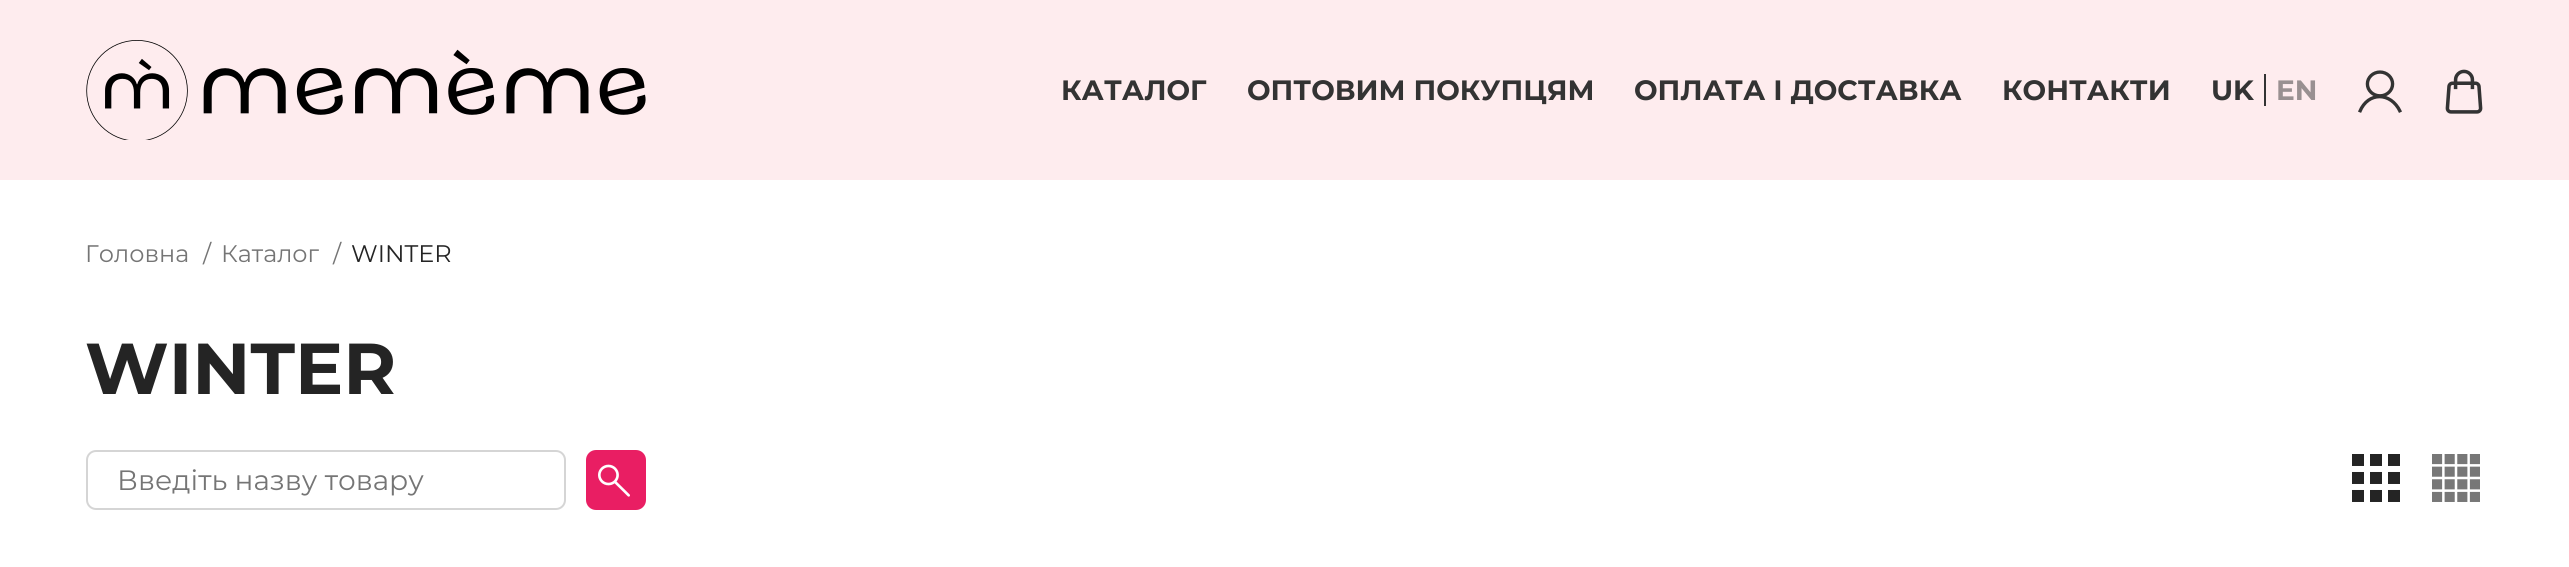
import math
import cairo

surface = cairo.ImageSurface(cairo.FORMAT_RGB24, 2569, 567)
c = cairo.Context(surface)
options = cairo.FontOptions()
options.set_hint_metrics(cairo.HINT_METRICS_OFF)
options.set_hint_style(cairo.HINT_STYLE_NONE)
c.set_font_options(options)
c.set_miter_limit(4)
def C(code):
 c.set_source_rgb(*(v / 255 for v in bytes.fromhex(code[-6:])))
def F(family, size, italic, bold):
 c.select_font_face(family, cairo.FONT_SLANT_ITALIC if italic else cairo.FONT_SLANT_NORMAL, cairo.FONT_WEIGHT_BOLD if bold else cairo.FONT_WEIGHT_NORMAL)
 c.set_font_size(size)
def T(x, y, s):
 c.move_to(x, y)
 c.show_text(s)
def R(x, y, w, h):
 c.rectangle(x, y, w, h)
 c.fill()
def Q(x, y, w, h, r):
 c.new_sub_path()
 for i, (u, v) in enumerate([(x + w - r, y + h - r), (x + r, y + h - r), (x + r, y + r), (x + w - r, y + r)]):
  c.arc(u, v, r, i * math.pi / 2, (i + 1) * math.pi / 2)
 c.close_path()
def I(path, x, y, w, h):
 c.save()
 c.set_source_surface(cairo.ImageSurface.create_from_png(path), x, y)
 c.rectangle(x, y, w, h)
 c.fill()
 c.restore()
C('ffffff')
c.paint()
C('feecee')
R(0,0,2569,180)
I('1.png',86,40,560,100)
F('Montserrat',28,0,1)
C('333333')
T(1061,100,'КАТАЛОГ')
T(1247,100,'ОПТОВИМ ПОКУПЦЯМ')
T(1634,100,'ОПЛАТА І ДОСТАВКА')
T(2002,100,'КОНТАКТИ')
T(2211,100,'UK')
R(2264,74,2,32)
C('999091')
T(2276,100,'EN')
I('2.png',2358,70,44,43)
I('3.png',2445,69,38,45)
F('Montserrat',24,0,0)
C('757575')
T(85,262,'Головна')
T(203,262,'/')
T(221,262,'Каталог')
T(333,262,'/')
C('242424')
T(351,262,'WINTER')
F('Montserrat',72,0,1)
T(85,394,'WINTER')
Q(87,451,478,58,9)
C('d5d5d5')
c.stroke()
F('Montserrat',28,0,0)
C('757575')
T(117,490,'Введіть назву товару')
C('e91e63')
Q(586,450,60,60,10)
c.fill()
I('4.png',598,464,32,33)
I('5.png',2352,454,48,48)
I('6.png',2432,454,48,48)
surface.write_to_png('o.png')
